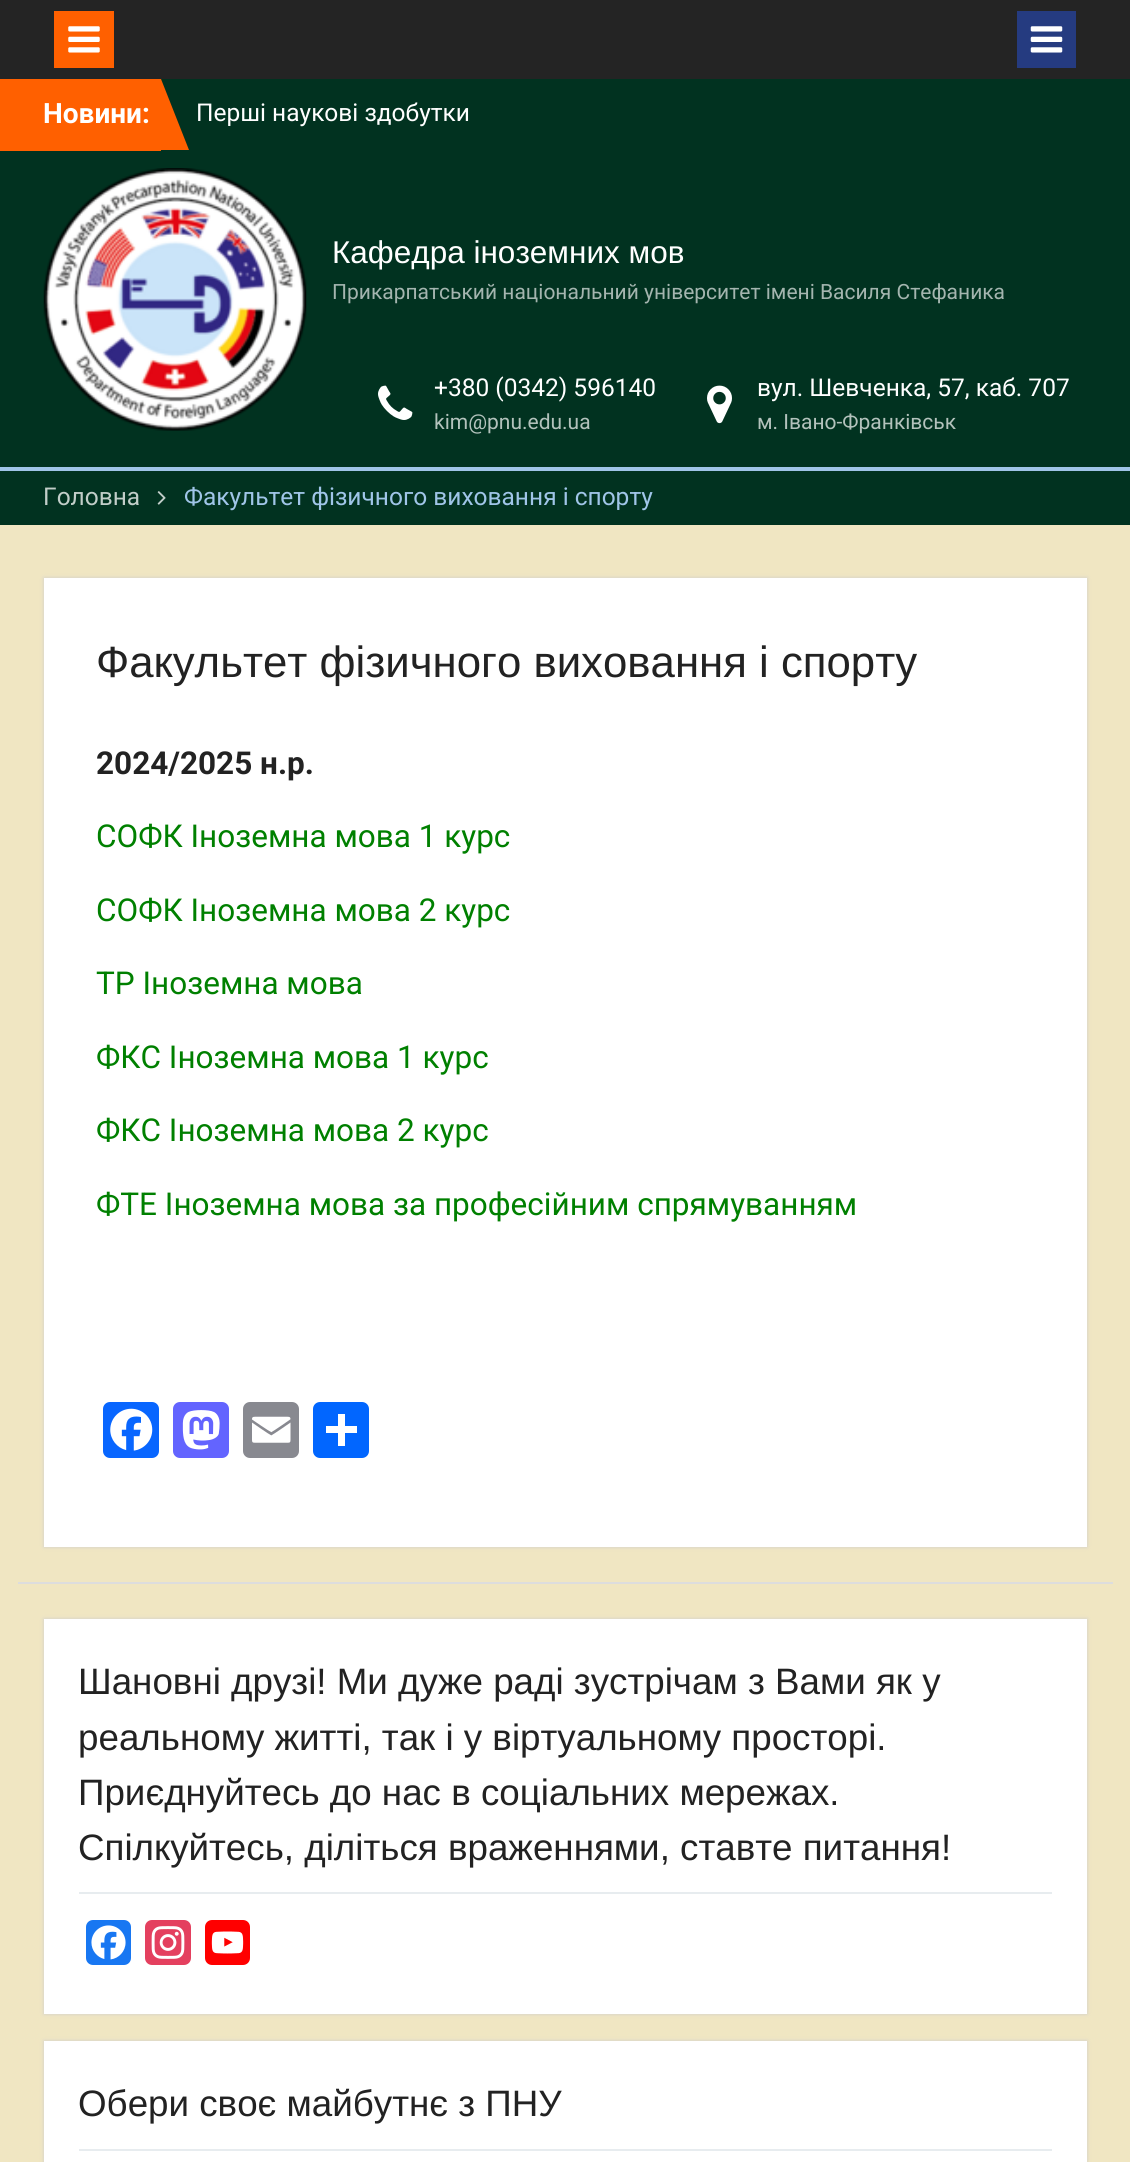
import math
import cairo

surface = cairo.ImageSurface(cairo.FORMAT_RGB24, 1130, 2162)
c = cairo.Context(surface)
options = cairo.FontOptions()
options.set_hint_metrics(cairo.HINT_METRICS_OFF)
options.set_hint_style(cairo.HINT_STYLE_NONE)
c.set_font_options(options)
c.set_miter_limit(4)
def C(code):
 c.set_source_rgb(*(v / 255 for v in bytes.fromhex(code[-6:])))
def F(family, size, italic, bold):
 c.select_font_face(family, cairo.FONT_SLANT_ITALIC if italic else cairo.FONT_SLANT_NORMAL, cairo.FONT_WEIGHT_BOLD if bold else cairo.FONT_WEIGHT_NORMAL)
 c.set_font_size(size)
def T(x, y, s):
 c.move_to(x, y)
 c.show_text(s)
def R(x, y, w, h):
 c.rectangle(x, y, w, h)
 c.fill()
def Q(x, y, w, h, r):
 c.new_sub_path()
 for i, (u, v) in enumerate([(x + w - r, y + h - r), (x + r, y + h - r), (x + r, y + r), (x + w - r, y + r)]):
  c.arc(u, v, r, i * math.pi / 2, (i + 1) * math.pi / 2)
 c.close_path()
def S(x, y, w, h, r, blur, alpha):
 c.push_group_with_content(cairo.CONTENT_ALPHA)
 c.set_operator(cairo.OPERATOR_SOURCE)
 for i in range(15, -16, -2):
  e = blur * i / 6
  if min(w, h) + 2 * e > 0:
   c.set_source_rgba(0, 0, 0, alpha * math.erfc((i - 1) / 8.5) / 2)
   Q(x - e, y - e, w + 2 * e, h + 2 * e, max(0, min(r + e + blur * .6, min(w, h) / 2 + e)))
   c.fill()
 c.mask(c.pop_group())
def I(path, x, y, w, h):
 c.save()
 c.set_source_surface(cairo.ImageSurface.create_from_png(path), x, y)
 c.rectangle(x, y, w, h)
 c.fill()
 c.restore()
C('f0e6c2')
c.paint()
C('242424')
R(0,0,1130,79)
C('ff6000')
R(54,11,60,57)
I('1.png',68,26,32,27)
C('253b80')
R(1017,11,59,57)
I('2.png',1030,26,33,27)
C('013220')
R(161,79,969,72)
C('ff6000')
R(0,79,161,72)
F('Roboto',28,0,1)
C('ffffff')
T(43,123,'Новини:')
C('ff6000')
c.new_path()
c.move_to(161,150)
c.line_to(161,79)
c.line_to(189,150)
c.close_path()
c.fill()
F('Roboto',24.5,0,0)
C('ffffff')
T(196,121,'Перші наукові здобутки')
C('013220')
R(0,151,1130,316)
I('3.png',43,168,264,263)
F('Liberation Sans',31.5,0,0)
C('ffffff')
T(332,263,'Кафедра іноземних мов')
F('Roboto',21,0,0)
C('a4b5af')
T(332,299,'Прикарпатський національний університет імені Василя Стефаника')
I('4.png',378,385,35,35)
F('Roboto',24.5,0,0)
C('ffffff')
T(434,396,'+380 (0342) 596140')
F('Roboto',21,0,0)
C('b3c2bc')
T(434,429,'kim@pnu.edu.ua')
I('5.png',707,385,25,39)
F('Roboto',24.5,0,0)
C('ffffff')
T(757,396,'вул. Шевченка, 57, каб. 707')
F('Roboto',21,0,0)
C('b3c2bc')
T(757,429,'м. Івано-Франківськ')
C('013220')
R(0,471,1130,54)
C('a0c5e8')
R(0,467,1130,4)
F('Roboto',24.5,0,0)
C('c2cec9')
T(43,505,'Головна')
I('6.png',157,491,9,14)
C('a0c5e8')
T(184,505,'Факультет фізичного виховання і спорту')
C('dddddd')
R(18,1582,1095,2)
C('cfcfcf')
S(44,578,1043,969,0,2,1)
C('ffffff')
R(44,578,1043,969)
F('Liberation Sans',43.75,0,0)
C('222222')
T(96,677,'Факультет фізичного виховання і спорту')
F('Roboto',31.5,0,1)
T(96,774,'2024/2025 н.р.')
F('Roboto',31.5,0,0)
C('008000')
T(96,847,'СОФК Іноземна мова 1 курс')
T(96,921,'СОФК Іноземна мова 2 курс')
T(96,994,'ТР Іноземна мова')
T(96,1068,'ФКС Іноземна мова 1 курс')
T(96,1141,'ФКС Іноземна мова 2 курс')
T(96,1215,'ФТЕ Іноземна мова за професійним спрямуванням')
C('0866ff')
Q(103,1402,56,56,7)
c.fill()
I('7.png',110,1408,43,43)
C('6364ff')
Q(173,1402,56,56,7)
c.fill()
I('8.png',182,1410,38,40)
C('888990')
Q(243,1402,56,56,7)
c.fill()
I('9.png',252,1416,39,27)
C('0166ff')
Q(313,1402,56,56,7)
c.fill()
C('ffffff')
R(338,1414,7,32)
R(326,1426,31,7)
C('cfcfcf')
S(44,1619,1043,395,0,2,1)
C('ffffff')
R(44,1619,1043,395)
C('e7ecef')
R(79,1892,973,2)
F('Liberation Sans',36.75,0,0)
C('222222')
T(78,1694,'Шановні друзі! Ми дуже раді зустрічам з Вами як у')
T(78,1750,'реальному житті, так і у віртуальному просторі.')
T(78,1805,'Приєднуйтесь до нас в соціальних мережах.')
T(78,1860,'Спілкуйтесь, діліться враженнями, ставте питання!')
C('1877f2')
Q(86,1920,45,45,7)
c.fill()
I('10.png',91,1925,35,35)
C('e4405f')
Q(145,1920,46,45,7)
c.fill()
I('11.png',151,1926,34,33)
C('ff0000')
Q(205,1920,45,45,7)
c.fill()
I('12.png',211,1931,33,23)
C('cfcfcf')
S(44,2041,1043,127,0,2,1)
C('ffffff')
R(44,2041,1043,121)
C('e7ecef')
R(79,2149,973,2)
C('222222')
T(78,2116,'Обери своє майбутнє з ПНУ')
surface.write_to_png('o.png')
